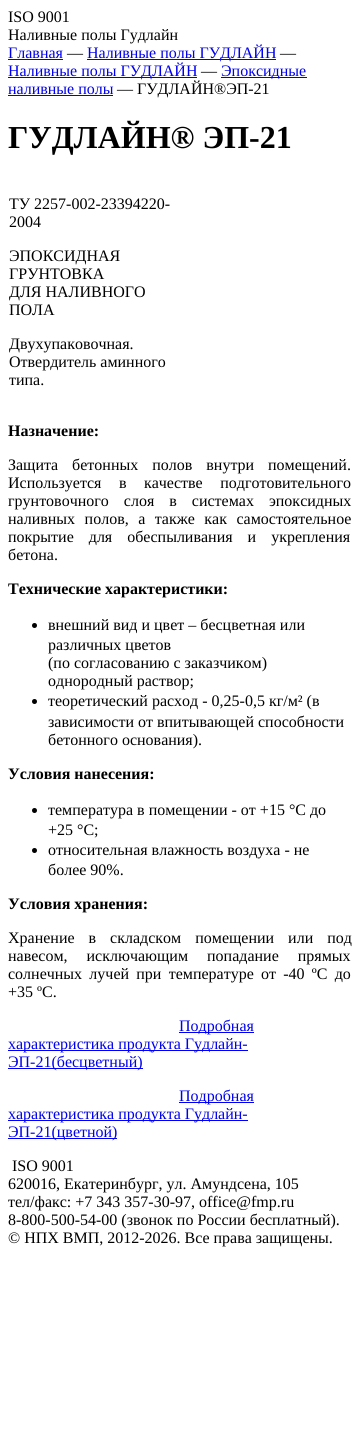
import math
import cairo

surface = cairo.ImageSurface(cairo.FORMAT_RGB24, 359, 1454)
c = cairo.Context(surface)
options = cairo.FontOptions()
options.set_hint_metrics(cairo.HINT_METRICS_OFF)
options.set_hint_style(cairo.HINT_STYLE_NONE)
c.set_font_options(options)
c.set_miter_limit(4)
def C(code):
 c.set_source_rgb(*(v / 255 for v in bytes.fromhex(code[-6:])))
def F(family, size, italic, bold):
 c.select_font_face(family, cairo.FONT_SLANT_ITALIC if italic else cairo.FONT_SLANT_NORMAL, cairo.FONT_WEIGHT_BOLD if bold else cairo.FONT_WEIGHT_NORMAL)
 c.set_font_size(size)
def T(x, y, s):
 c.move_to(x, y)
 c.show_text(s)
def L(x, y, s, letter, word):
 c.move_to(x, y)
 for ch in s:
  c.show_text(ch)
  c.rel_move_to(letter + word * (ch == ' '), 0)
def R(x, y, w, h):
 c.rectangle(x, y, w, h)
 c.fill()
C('ffffff')
c.paint()
F('Liberation Serif',16,0,0)
C('000000')
T(8,22,'ISO 9001')
T(8,40,'Наливные полы Гудлайн')
C('0000ee')
T(8,58,'Главная')
R(8,59,55,1)
C('000000')
T(67,58,'—')
C('0000ee')
R(87,59,189,1)
T(87,58,'Наливные полы ГУДЛАЙН')
C('000000')
T(280,58,'—')
C('0000ee')
R(8,77,189,1)
T(8,76,'Наливные полы ГУДЛАЙН')
C('000000')
T(201,76,'—')
C('0000ee')
R(221,77,86,1)
T(221,76,'Эпоксидные')
T(8,94,'наливные полы')
R(8,95,105,1)
C('000000')
T(117,94,'— ГУДЛАЙН®ЭП-21')
F('Liberation Serif',32,0,1)
T(8,148,'ГУДЛАЙН® ЭП-21')
F('Liberation Serif',16,0,0)
T(9,209,'ТУ 2257-002-23394220-')
T(9,227,'2004')
T(9,261,'ЭПОКСИДНАЯ')
T(9,279,'ГРУНТОВКА')
T(9,297,'ДЛЯ НАЛИВНОГО')
T(9,315,'ПОЛА')
T(9,349,'Двухупаковочная.')
T(9,367,'Отвердитель аминного')
T(9,385,'типа.')
F('Liberation Serif',16,0,1)
T(8,436,'Назначение:')
F('Liberation Serif',16,0,0)
L(8,470,'Защита бетонных полов внутри помещений.',0,10)
L(8,488,'Используется в качестве подготовительного',0,13.5)
L(8,506,'грунтовочного слоя в системах эпоксидных',0,11)
L(8,524,'наливных полов, а также как самостоятельное',0,5.5)
L(8,542,'покрытие для обеспыливания и укрепления',0,11)
T(8,560,'бетона.')
F('Liberation Serif',16,0,1)
T(8,594,'Технические характеристики:')
c.new_path()
c.arc(34.5,625.5,2.5,0,2 * math.pi)
c.fill()
F('Liberation Serif',16,0,0)
T(48,630,'внешний вид и цвет – бесцветная или')
T(48,650,'различных цветов')
T(48,668,'(по согласованию с заказчиком)')
T(48,686,'однородный раствор;')
c.new_path()
c.arc(34.5,701.5,2.5,0,2 * math.pi)
c.fill()
T(48,706,'теоретический расход - 0,25-0,5 кг/м² (в')
T(48,727,'зависимости от впитывающей способности')
T(48,745,'бетонного основания).')
F('Liberation Serif',16,0,1)
T(8,779,'Условия нанесения:')
c.new_path()
c.arc(34.5,810.5,2.5,0,2 * math.pi)
c.fill()
F('Liberation Serif',16,0,0)
T(48,815,'температура в помещении - от +15 °С до')
T(48,835,'+25 °С;')
c.new_path()
c.arc(34.5,850.5,2.5,0,2 * math.pi)
c.fill()
T(48,855,'относительная влажность воздуха - не')
T(48,875,'более 90%.')
F('Liberation Serif',16,0,1)
T(8,909,'Условия хранения:')
F('Liberation Serif',16,0,0)
L(8,943,'Хранение в складском помещении или под',0,10)
L(8,961,'навесом, исключающим попадание прямых',0,15)
L(8,979,'солнечных лучей при температуре от -40 ºС до',0,3.25)
T(8,997,'+35 ºС.')
C('0000ee')
R(179,1032,75,1)
T(179,1031,'Подробная')
R(8,1050,240,1)
T(8,1049,'характеристика продукта Гудлайн-')
R(8,1068,135,1)
T(8,1067,'ЭП-21(бесцветный)')
R(179,1102,75,1)
T(179,1101,'Подробная')
R(8,1120,240,1)
T(8,1119,'характеристика продукта Гудлайн-')
R(8,1138,109,1)
T(8,1137,'ЭП-21(цветной)')
C('000000')
T(12,1171,'ISO 9001')
T(8,1189,'620016, Екатеринбург, ул. Амундсена, 105')
T(8,1207,'тел/факс: +7 343 357-30-97, office@fmp.ru')
T(8,1225,'8-800-500-54-00 (звонок по России бесплатный).')
T(8,1243,'© НПХ ВМП, 2012-2026. Все права защищены.')
surface.write_to_png('o.png')
